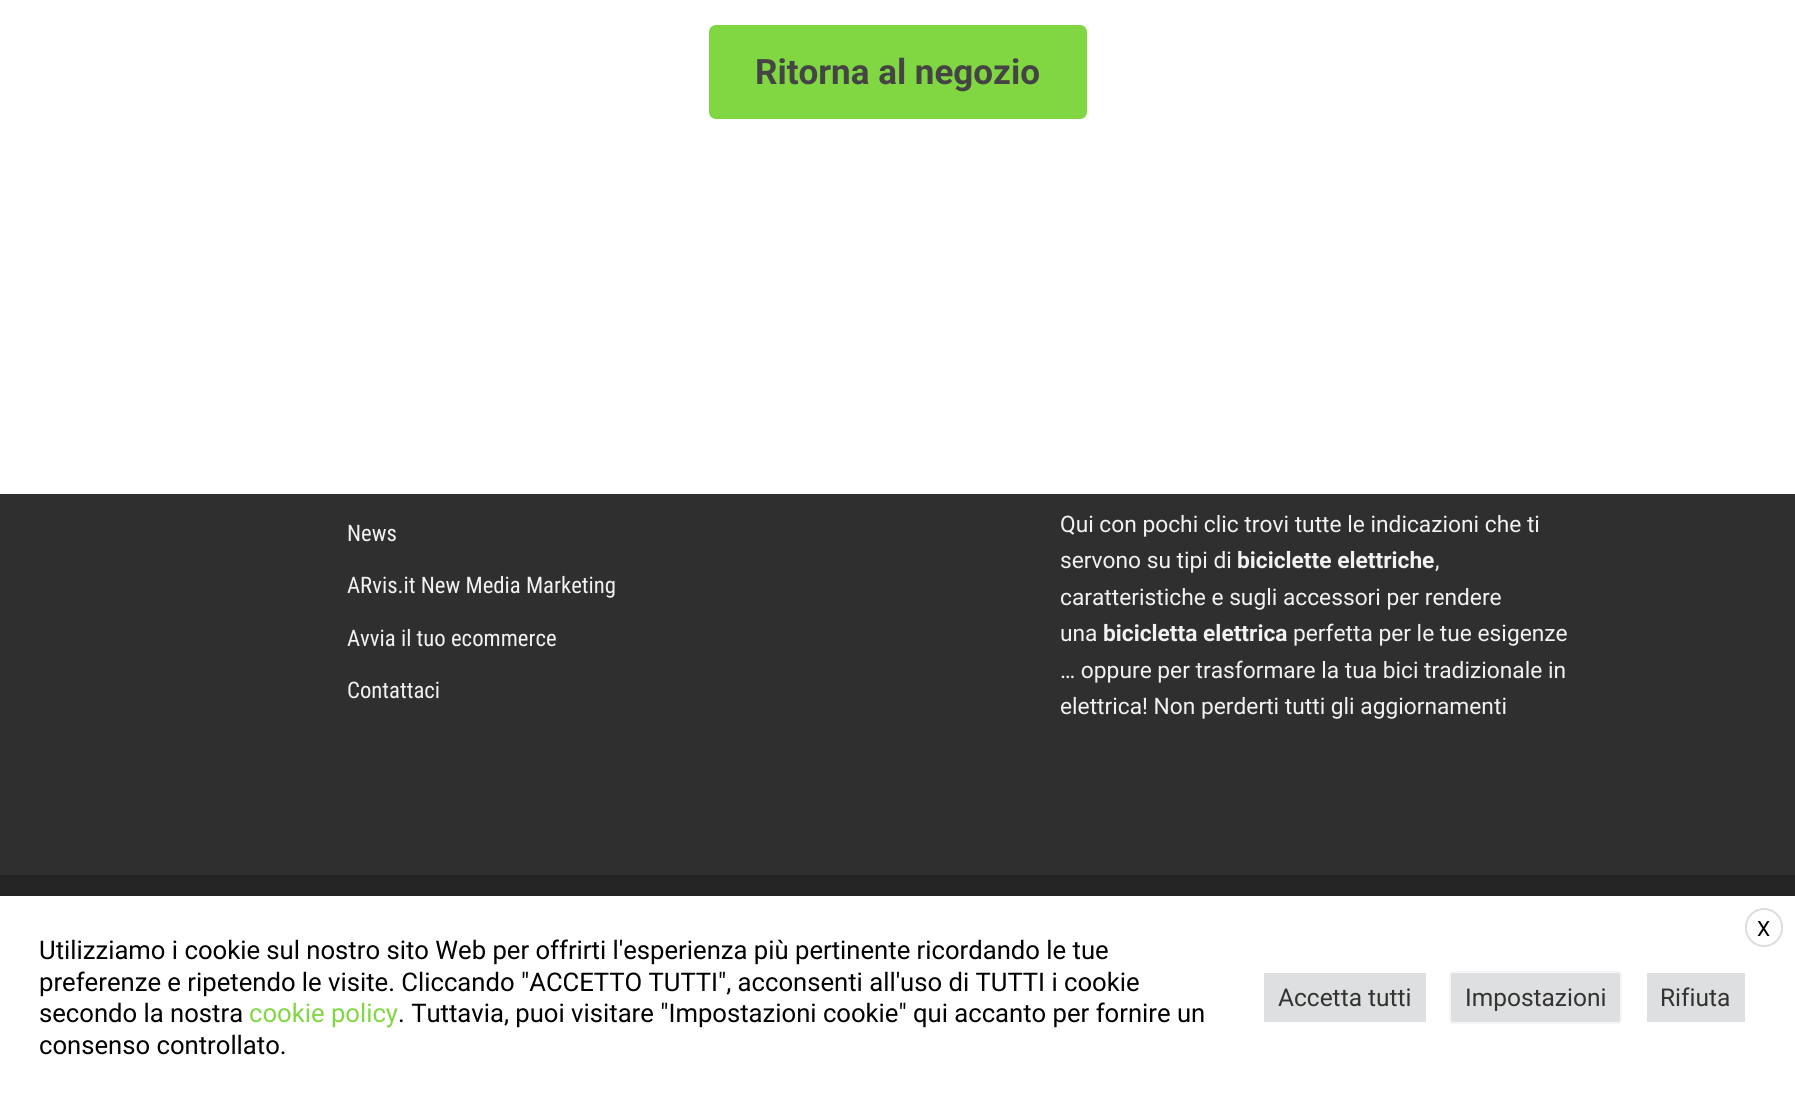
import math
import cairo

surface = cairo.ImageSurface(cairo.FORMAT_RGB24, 1795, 1098)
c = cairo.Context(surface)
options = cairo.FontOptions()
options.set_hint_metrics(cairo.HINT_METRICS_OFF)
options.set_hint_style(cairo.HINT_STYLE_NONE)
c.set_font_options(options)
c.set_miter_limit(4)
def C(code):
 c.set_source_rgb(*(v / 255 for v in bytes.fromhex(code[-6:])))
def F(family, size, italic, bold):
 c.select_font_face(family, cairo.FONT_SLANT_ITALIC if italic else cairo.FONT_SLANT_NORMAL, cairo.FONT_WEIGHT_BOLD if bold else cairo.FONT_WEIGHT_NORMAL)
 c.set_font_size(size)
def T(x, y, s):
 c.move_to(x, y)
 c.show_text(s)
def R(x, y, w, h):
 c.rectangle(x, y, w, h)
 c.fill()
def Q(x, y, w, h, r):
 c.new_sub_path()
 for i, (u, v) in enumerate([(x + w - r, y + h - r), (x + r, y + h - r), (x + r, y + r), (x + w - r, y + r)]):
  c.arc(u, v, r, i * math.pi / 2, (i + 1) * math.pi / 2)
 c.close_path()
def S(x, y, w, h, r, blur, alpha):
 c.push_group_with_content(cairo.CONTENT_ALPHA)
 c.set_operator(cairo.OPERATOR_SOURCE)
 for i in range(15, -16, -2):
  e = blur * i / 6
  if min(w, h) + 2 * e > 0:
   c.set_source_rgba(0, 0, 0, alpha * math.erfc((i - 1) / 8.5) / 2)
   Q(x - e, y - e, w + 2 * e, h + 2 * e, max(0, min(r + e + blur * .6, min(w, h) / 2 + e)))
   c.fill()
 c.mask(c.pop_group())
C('2f2f2f')
c.paint()
C('ffffff')
R(0,0,1795,494)
C('81d742')
Q(711,27,374,90,5)
c.fill_preserve()
c.set_line_width(4)
c.stroke()
F('Roboto',35,0,1)
C('444444')
T(755,84,'Ritorna al negozio')
F('Roboto Condensed',22.75,0,0)
C('f2f2f2')
T(347,541,'News')
T(347,593,'ARvis.it New Media Marketing')
T(347,646,'Avvia il tuo ecommerce')
T(347,698,'Contattaci')
F('Roboto',22.75,0,0)
T(1060,532,'Qui con pochi clic trovi tutte le indicazioni che ti')
T(1060,568,'servono su tipi di')
F('Roboto',22.75,0,1)
T(1237,568,'biciclette elettriche')
F('Roboto',22.75,0,0)
T(1435,568,',')
T(1060,605,'caratteristiche e sugli accessori per rendere')
T(1060,641,'una')
F('Roboto',22.75,0,1)
T(1103,641,'bicicletta elettrica')
F('Roboto',22.75,0,0)
T(1293,641,'perfetta per le tue esigenze')
T(1060,678,'… oppure per trasformare la tua bici tradizionale in')
T(1060,714,'elettrica! Non perderti tutti gli aggiornamenti')
C('252525')
R(0,875,1795,21)
C('000000')
S(0,905,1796,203,0,9,.5)
C('ffffff')
R(0,896,1795,202)
Q(1746,909,36,37,18)
C('dddddd')
c.set_line_width(2)
c.stroke()
F('Roboto',21,0,0)
C('000000')
T(1757,936,'X')
F('Roboto',25.65,0,0)
T(39,959,'Utilizziamo i cookie sul nostro sito Web per offrirti l\'esperienza più pertinente ricordando le tue')
T(39,991,'preferenze e ripetendo le visite. Cliccando "ACCETTO TUTTI", acconsenti all\'uso di TUTTI i cookie')
T(39,1022,'secondo la nostra')
C('81d742')
T(249,1022,'cookie policy')
C('000000')
T(398,1022,'. Tuttavia, puoi visitare "Impostazioni cookie" qui accanto per fornire un')
T(39,1054,'consenso controllato.')
C('dedfe0')
R(1264,973,162,49)
F('Roboto',24.5,0,0)
C('333333')
T(1278,1006,'Accetta tutti')
C('dedfe0')
Q(1450,972,171,51,3)
c.fill_preserve()
C('f4f4f9')
c.stroke()
C('333333')
T(1465,1006,'Impostazioni')
C('dedfe0')
R(1647,973,98,49)
C('333333')
T(1660,1006,'Rifiuta')
surface.write_to_png('o.png')
